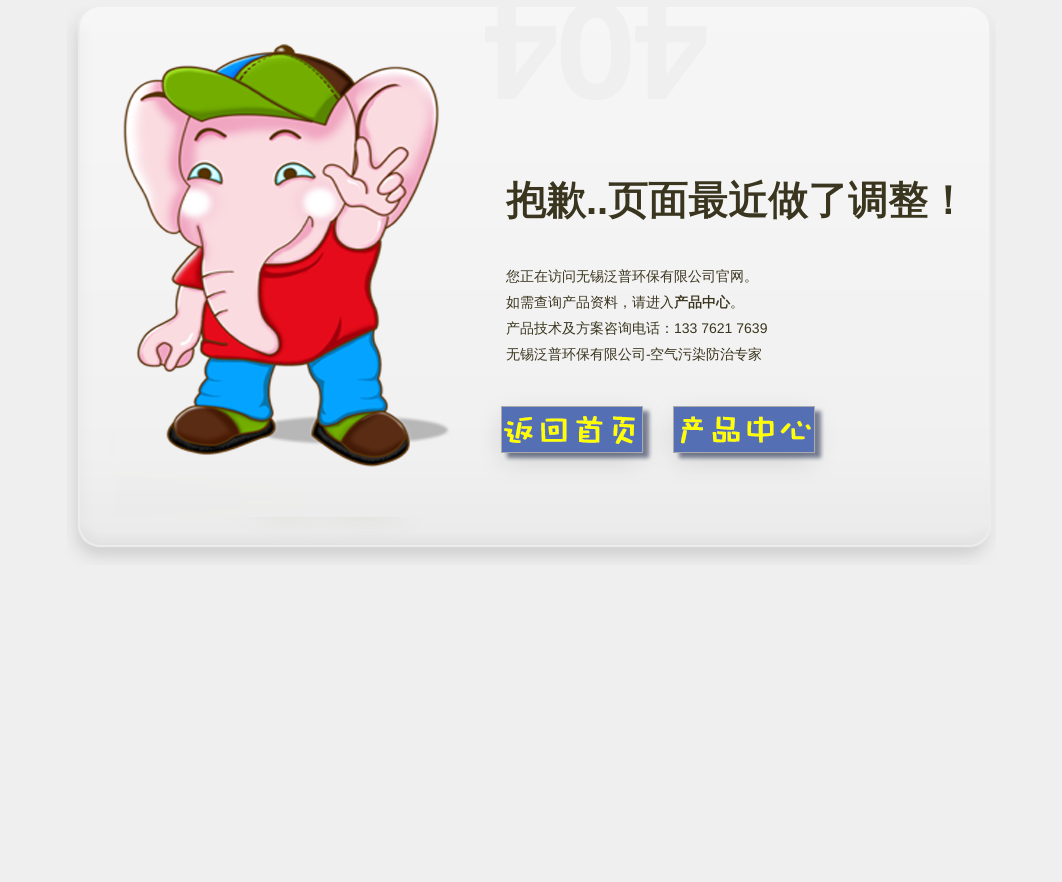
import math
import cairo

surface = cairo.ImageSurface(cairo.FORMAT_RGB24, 1062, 882)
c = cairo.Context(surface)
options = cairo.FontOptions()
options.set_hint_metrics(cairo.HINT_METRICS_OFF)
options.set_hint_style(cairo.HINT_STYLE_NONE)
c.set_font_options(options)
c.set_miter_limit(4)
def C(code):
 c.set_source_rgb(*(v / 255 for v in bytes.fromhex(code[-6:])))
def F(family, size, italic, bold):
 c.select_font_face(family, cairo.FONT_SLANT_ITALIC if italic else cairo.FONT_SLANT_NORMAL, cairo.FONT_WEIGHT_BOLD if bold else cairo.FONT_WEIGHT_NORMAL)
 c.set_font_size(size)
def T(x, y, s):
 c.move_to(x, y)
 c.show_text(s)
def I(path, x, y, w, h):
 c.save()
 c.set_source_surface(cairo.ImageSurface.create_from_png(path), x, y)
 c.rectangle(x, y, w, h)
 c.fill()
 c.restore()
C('efefef')
c.paint()
I('1.png',67,7,929,558)
F('WenQuanYi Zen Hei',40,0,1)
C('39351e')
T(506,214,'抱歉')
F('Liberation Sans',40,0,1)
T(586,214,'..')
F('WenQuanYi Zen Hei',40,0,1)
T(608,214,'页面最近做了调整！')
F('WenQuanYi Zen Hei Medium',14,0,0)
T(506,281,'您正在访问无锡泛普环保有限公司官网。')
T(506,307,'如需查询产品资料，请进入')
F('WenQuanYi Zen Hei',14,0,1)
T(674,307,'产品中心')
F('WenQuanYi Zen Hei Medium',14,0,0)
T(730,307,'。')
T(506,333,'产品技术及方案咨询电话：')
F('Liberation Sans',14,0,0)
T(674,333,'133 7621 7639')
F('WenQuanYi Zen Hei Medium',14,0,0)
T(506,359,'无锡泛普环保有限公司')
F('Liberation Sans',14,0,0)
T(646,359,'-')
F('WenQuanYi Zen Hei Medium',14,0,0)
T(650,359,'空气污染防治专家')
surface.write_to_png('o.png')
